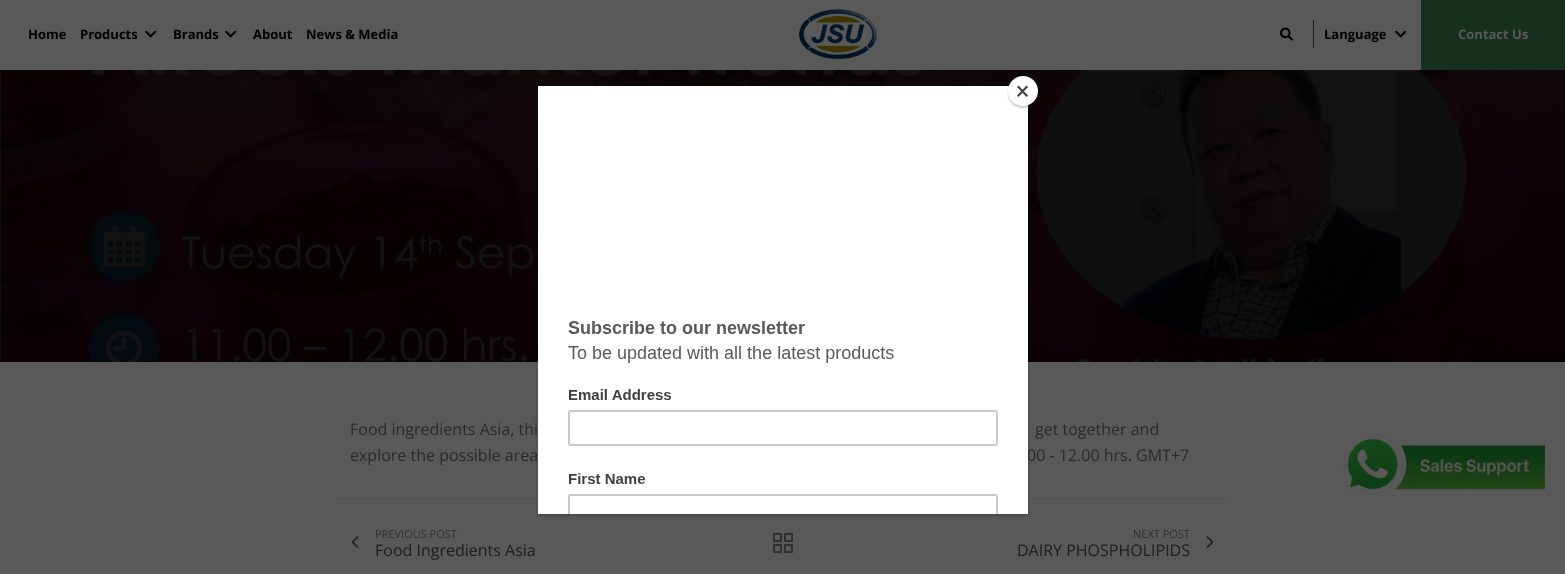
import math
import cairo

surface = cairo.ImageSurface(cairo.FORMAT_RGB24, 1565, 574)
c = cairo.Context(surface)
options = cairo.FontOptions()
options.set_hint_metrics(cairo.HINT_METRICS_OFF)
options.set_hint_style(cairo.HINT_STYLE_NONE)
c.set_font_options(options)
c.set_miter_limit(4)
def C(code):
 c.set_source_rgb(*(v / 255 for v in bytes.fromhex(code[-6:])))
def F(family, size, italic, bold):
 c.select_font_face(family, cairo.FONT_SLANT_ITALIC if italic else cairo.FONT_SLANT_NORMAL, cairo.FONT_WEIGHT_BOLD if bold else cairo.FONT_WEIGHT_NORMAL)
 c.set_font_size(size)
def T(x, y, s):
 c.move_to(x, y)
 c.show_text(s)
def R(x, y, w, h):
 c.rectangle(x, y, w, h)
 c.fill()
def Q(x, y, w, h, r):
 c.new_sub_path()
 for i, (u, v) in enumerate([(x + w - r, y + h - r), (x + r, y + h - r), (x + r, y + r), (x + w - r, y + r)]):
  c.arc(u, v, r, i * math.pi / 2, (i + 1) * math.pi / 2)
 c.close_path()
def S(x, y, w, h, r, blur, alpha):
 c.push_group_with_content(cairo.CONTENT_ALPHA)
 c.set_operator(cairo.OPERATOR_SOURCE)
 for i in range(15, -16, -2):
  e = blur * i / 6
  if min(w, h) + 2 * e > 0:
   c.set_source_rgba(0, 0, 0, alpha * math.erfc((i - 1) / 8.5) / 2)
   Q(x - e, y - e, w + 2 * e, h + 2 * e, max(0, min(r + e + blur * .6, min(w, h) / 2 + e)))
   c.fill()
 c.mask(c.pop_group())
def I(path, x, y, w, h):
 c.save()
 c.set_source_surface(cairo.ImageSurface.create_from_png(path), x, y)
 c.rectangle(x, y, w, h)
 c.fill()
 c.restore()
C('595959')
c.paint()
F('Open Sans',13,0,1)
C('000000')
T(28,39,'Home')
T(80,39,'Products')
I('1.png',145,30,12,8)
T(173,39,'Brands')
I('1.png',225,30,12,8)
T(253,39,'About')
T(306,39,'News & Media')
I('2.png',799,9,78,50)
I('3.png',1280,27,13,14)
C('1e1e1e')
R(1313,20,1,28)
C('000000')
T(1324,39,'Language')
I('1.png',1395,30,12,8)
C('162f1e')
R(1421,0,144,70)
C('595959')
T(1458,39,'Contact Us')
I('4.png',0,70,1565,292)
F('Open Sans',16,0,0)
C('2a2a2a')
T(350,435,'Food ingredients Asia, thi')
T(1035,435,'get together and')
T(350,461,'explore the possible area')
T(1027,461,'00 - 12.00 hrs. GMT+7')
C('535353')
R(335,498,895,1)
I('5.png',351,536,8,12)
F('Open Sans',11,0,0)
C('303030')
T(375,538,'PREVIOUS POST')
F('Open Sans',16,0,0)
C('1e1e1e')
T(375,556,'Food Ingredients Asia')
I('6.png',773,533,20,20)
F('Open Sans',11,0,0)
C('303030')
T(1133,538,'NEXT POST')
F('Open Sans',16,0,0)
C('1e1e1e')
T(1017,556,'DAIRY PHOSPHOLIPIDS')
I('7.png',1206,536,8,12)
C('000000')
S(538,88,490,428,0,2,.2)
I('8.png',538,86,490,428)
S(1008,78,30,30,15,1,.2)
C('ffffff')
c.arc(1023,91,15,0,2 * math.pi)
c.fill()
C('414141')
c.new_path()
c.move_to(1026.5,85.5)
c.line_to(1028,87)
c.line_to(1018.5,97)
c.line_to(1017,95.5)
c.close_path()
c.fill()
c.new_path()
c.move_to(1017,87)
c.line_to(1018.5,85.5)
c.line_to(1028,95.5)
c.line_to(1026.5,97)
c.close_path()
c.fill()
I('9.png',1343,434,202,60)
surface.write_to_png('o.png')
